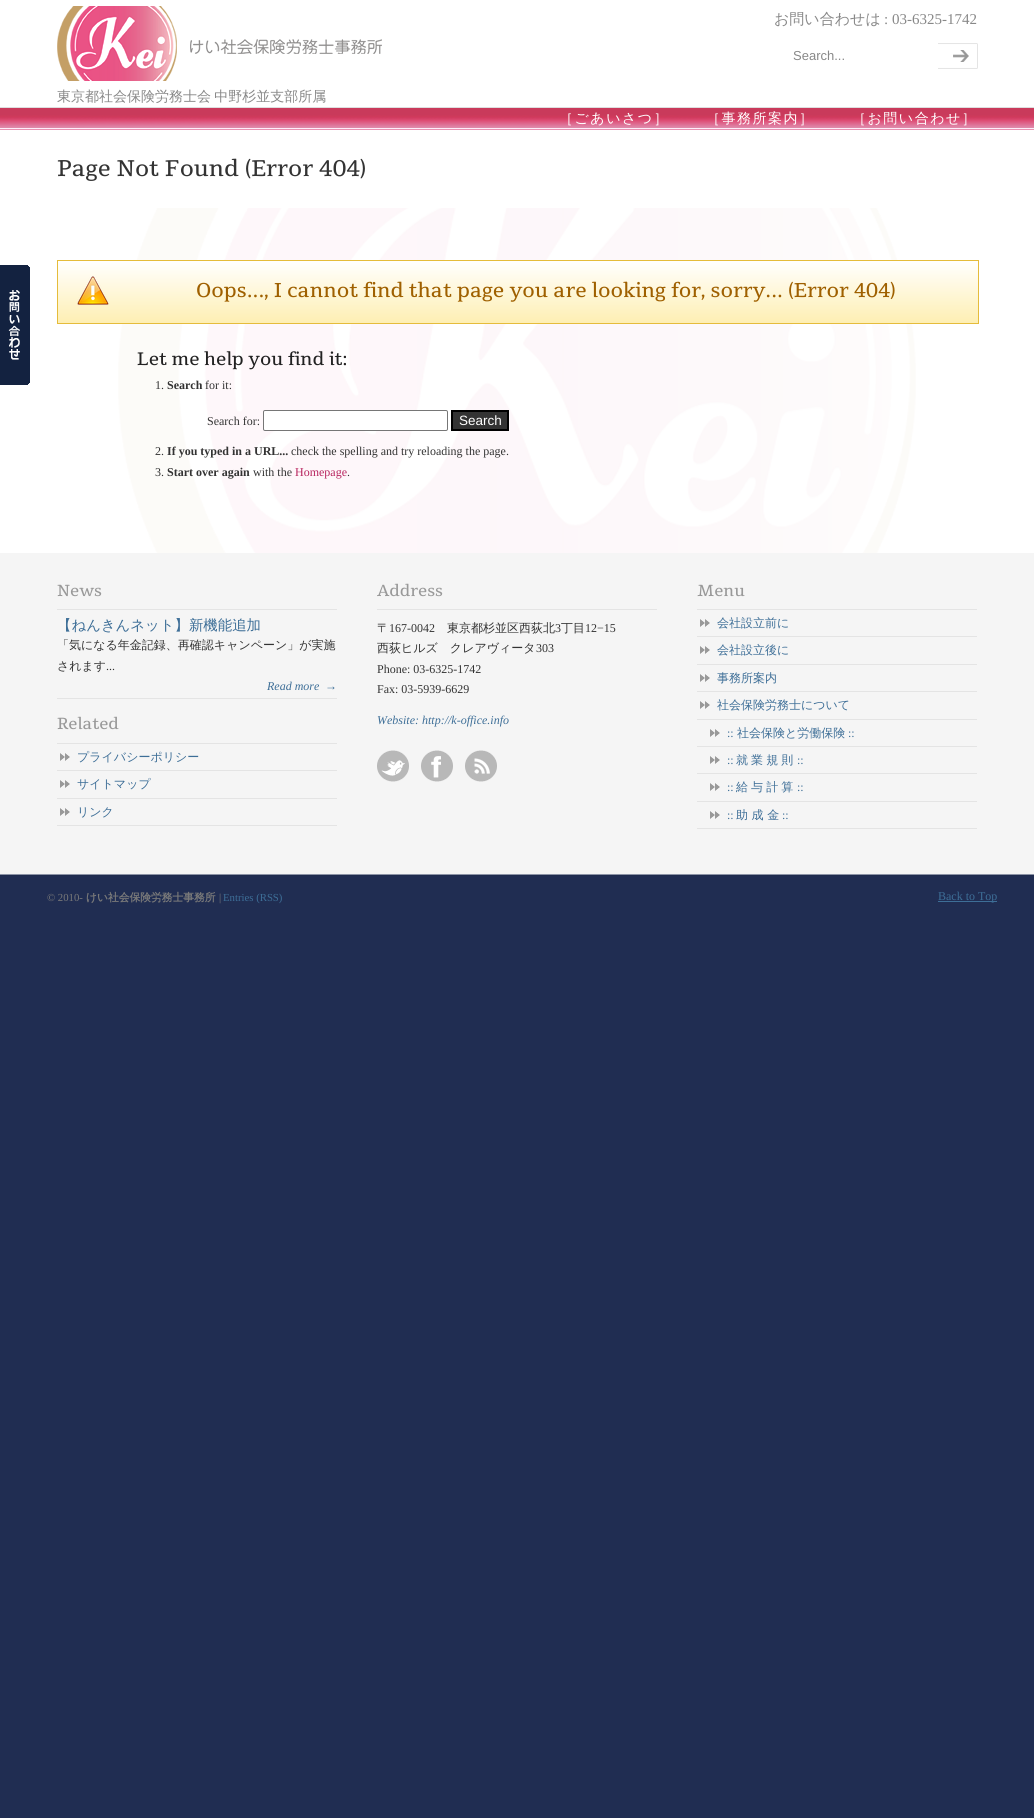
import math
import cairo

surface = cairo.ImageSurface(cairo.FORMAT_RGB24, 1034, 1818)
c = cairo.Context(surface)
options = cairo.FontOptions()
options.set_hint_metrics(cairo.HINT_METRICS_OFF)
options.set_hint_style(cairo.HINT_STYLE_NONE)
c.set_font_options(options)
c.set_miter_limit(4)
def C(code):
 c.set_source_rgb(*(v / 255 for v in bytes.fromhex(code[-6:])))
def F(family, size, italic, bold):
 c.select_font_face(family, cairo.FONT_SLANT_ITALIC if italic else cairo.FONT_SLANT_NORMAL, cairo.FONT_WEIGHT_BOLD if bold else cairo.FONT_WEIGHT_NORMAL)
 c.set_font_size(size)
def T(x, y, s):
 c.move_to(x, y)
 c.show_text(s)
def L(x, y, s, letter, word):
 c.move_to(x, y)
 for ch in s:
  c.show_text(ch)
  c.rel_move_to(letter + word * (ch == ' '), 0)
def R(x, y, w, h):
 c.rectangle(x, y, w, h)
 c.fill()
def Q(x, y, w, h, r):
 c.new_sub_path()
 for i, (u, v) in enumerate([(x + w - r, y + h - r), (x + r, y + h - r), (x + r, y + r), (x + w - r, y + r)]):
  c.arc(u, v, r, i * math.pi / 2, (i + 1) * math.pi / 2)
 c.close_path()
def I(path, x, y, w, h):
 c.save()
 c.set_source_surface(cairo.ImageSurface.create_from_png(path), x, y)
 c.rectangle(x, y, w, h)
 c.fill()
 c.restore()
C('202d52')
c.paint()
C('ffffff')
R(0,130,1034,423)
I('1.png',0,265,30,120)
I('2.png',0,0,1034,130)
I('3.png',57,6,325,75)
F('WenQuanYi Zen Hei Medium',15,0,0)
C('888888')
T(774,24,'お問い合わせは')
F('Liberation Serif',15,0,0)
T(884,24,': 03-6325-1742')
F('Liberation Sans',13,0,0)
T(793,60,'Search...')
I('4.png',938,43,40,26)
F('WenQuanYi Zen Hei Medium',14,0,0)
L(57,101,'東京都社会保険労務士会 中野杉並支部所属',0,-1)
I('5.png',0,128,1034,2)
C('ffffff')
L(559,123,'［ごあいさつ］',1.5,0)
L(706,123,'［事務所案内］',1.5,0)
L(852,123,'［お問い合わせ］',1.5,0)
F('Tienne',22.6,0,0)
C('333333')
T(57,176,'Page Not Found (Error 404)')
I('6.png',118,208,798,345)
gradient = cairo.LinearGradient(518,261,518,323)
gradient.add_color_stop_rgba(0,1,1,1,1)
gradient.add_color_stop_rgba(1,0.996,0.937,0.702,1)
c.set_source(gradient)
R(58,261,920,62)
c.rectangle(57.5,260.5,921,63)
C('e5bc3b')
c.set_line_width(1)
c.stroke()
I('7.png',77,276,32,29)
F('Tienne',20,0,0)
C('9f6000')
T(196,297,'Oops..., I cannot find that page you are looking for, sorry... (Error 404)')
F('Tienne',18,0,0)
C('222222')
T(137,365,'Let me help you find it:')
F('Liberation Serif',12,0,0)
C('333333')
T(155,389,'1.')
F('Liberation Serif',12,0,1)
T(167,389,'Search')
F('Liberation Serif',12,0,0)
T(205,389,'for it:')
T(207,425,'Search for:')
C('ffffff')
Q(263.5,410.5,184,20,1.5)
c.fill_preserve()
C('767676')
c.stroke()
C('333333')
c.rectangle(452,411,56,19)
c.fill_preserve()
C('000000')
c.set_line_width(2)
c.stroke()
F('Liberation Sans',13.5,0,0)
C('ffffff')
T(459,425,'Search')
F('Liberation Serif',12,0,0)
C('333333')
T(155,455,'2.')
F('Liberation Serif',12,0,1)
T(167,455,'If you typed in a URL...')
F('Liberation Serif',12,0,0)
T(291,455,'check the spelling and try reloading the page.')
T(155,476,'3.')
F('Liberation Serif',12,0,1)
T(167,476,'Start over again')
F('Liberation Serif',12,0,0)
T(253,476,'with the')
C('b7235e')
T(295,476,'Homepage')
C('333333')
T(347,476,'.')
C('f5f5f5')
R(0,553,1034,321)
C('e4e4e4')
R(57,609,280,1)
F('Tienne',16,0,0)
C('999999')
T(57,596,'News')
C('e4e4e4')
R(57,698,280,1)
F('WenQuanYi Zen Hei Medium',14.4,0,0)
C('3d6e97')
T(57,630,'【ねんきんネット】新機能追加')
F('WenQuanYi Zen Hei Medium',12,0,0)
C('333333')
T(57,649,'「気になる年金記録、再確認キャンペーン」が実施')
T(57,670,'されます')
F('Liberation Serif',12,0,0)
T(106,670,'...')
F('Liberation Serif',12,1,0)
C('3d6e97')
T(267,690,'Read more')
F('Liberation Serif',12,0,0)
T(325,690,'→')
C('e4e4e4')
R(57,743,280,1)
F('Tienne',16,0,0)
C('999999')
T(57,729,'Related')
I('8.png',60,753,10,8)
C('e4e4e4')
R(57,770,280,1)
F('WenQuanYi Zen Hei Medium',12,0,0)
C('3d6e97')
T(77,761,'プライバシーポリシー')
I('8.png',60,780,10,8)
C('e4e4e4')
R(57,798,280,1)
C('3d6e97')
T(77,788,'サイトマップ')
I('8.png',60,808,10,8)
C('e4e4e4')
R(57,825,280,1)
C('3d6e97')
T(77,816,'リンク')
C('e4e4e4')
R(377,609,280,1)
F('Tienne',16,0,0)
C('999999')
T(377,596,'Address')
F('WenQuanYi Zen Hei Medium',12,0,0)
C('333333')
T(377,632,'〒')
F('Liberation Serif',12,0,0)
T(389,632,'167-0042')
F('WenQuanYi Zen Hei Medium',12,0,0)
T(447,632,'東京都杉並区西荻北')
F('Liberation Serif',12,0,0)
T(555,632,'3')
F('WenQuanYi Zen Hei Medium',12,0,0)
T(561,632,'丁目')
F('Liberation Serif',12,0,0)
T(585,632,'12−15')
F('WenQuanYi Zen Hei Medium',12,0,0)
T(377,652,'西荻ヒルズ　クレアヴィータ')
F('Liberation Serif',12,0,0)
T(536,652,'303')
T(377,673,'Phone: 03-6325-1742')
T(377,693,'Fax: 03-5939-6629')
F('Liberation Serif',12,1,0)
C('3d6e97')
T(377,724,'Website: http://k-office.info')
I('9.png',377,750,32,32)
I('10.png',421,750,32,32)
I('11.png',465,750,32,32)
C('e4e4e4')
R(697,609,280,1)
F('Tienne',16,0,0)
C('999999')
T(697,596,'Menu')
I('8.png',700,619,10,8)
C('e4e4e4')
R(697,636,280,1)
F('WenQuanYi Zen Hei Medium',12,0,0)
C('3d6e97')
T(717,627,'会社設立前に')
I('8.png',700,646,10,8)
C('e4e4e4')
R(697,664,280,1)
C('3d6e97')
T(717,654,'会社設立後に')
I('8.png',700,674,10,8)
C('e4e4e4')
R(697,691,280,1)
C('3d6e97')
T(717,682,'事務所案内')
I('8.png',700,701,10,8)
C('e4e4e4')
R(697,719,280,1)
C('3d6e97')
T(717,709,'社会保険労務士について')
I('8.png',710,729,10,8)
C('e4e4e4')
R(697,746,280,1)
F('Liberation Serif',12,0,0)
C('3d6e97')
T(727,737,'::')
F('WenQuanYi Zen Hei Medium',12,0,0)
T(737,737,'社会保険と労働保険')
F('Liberation Serif',12,0,0)
T(848,737,'::')
I('8.png',710,756,10,8)
C('e4e4e4')
R(697,773,280,1)
C('3d6e97')
T(727,764,'::')
F('WenQuanYi Zen Hei Medium',12,0,0)
L(736,764,'就 業 規 則',0,-.5)
F('Liberation Serif',12,0,0)
T(797,764,'::')
I('8.png',710,783,10,8)
C('e4e4e4')
R(697,801,280,1)
C('3d6e97')
T(727,791,'::')
F('WenQuanYi Zen Hei Medium',12,0,0)
L(736,791,'給 与 計 算',0,-.5)
F('Liberation Serif',12,0,0)
T(797,791,'::')
I('8.png',710,811,10,8)
C('e4e4e4')
R(697,828,280,1)
C('3d6e97')
T(727,819,'::')
F('WenQuanYi Zen Hei Medium',12,0,0)
T(736,819,'助 成 金')
F('Liberation Serif',12,0,0)
T(782,819,'::')
I('12.png',0,874,1034,2)
F('Liberation Serif',10.75,0,0)
C('797979')
T(47,901,'© 2010-')
F('WenQuanYi Zen Hei',10.75,0,1)
T(86,901,'けい社会保険労務士事務所')
F('Liberation Serif',10.75,0,0)
T(219,901,'|')
C('3d6e97')
T(223,901,'Entries (RSS)')
R(938,901,59,1)
F('Liberation Serif',12,0,0)
T(938,900,'Back to Top')
surface.write_to_png('o.png')
